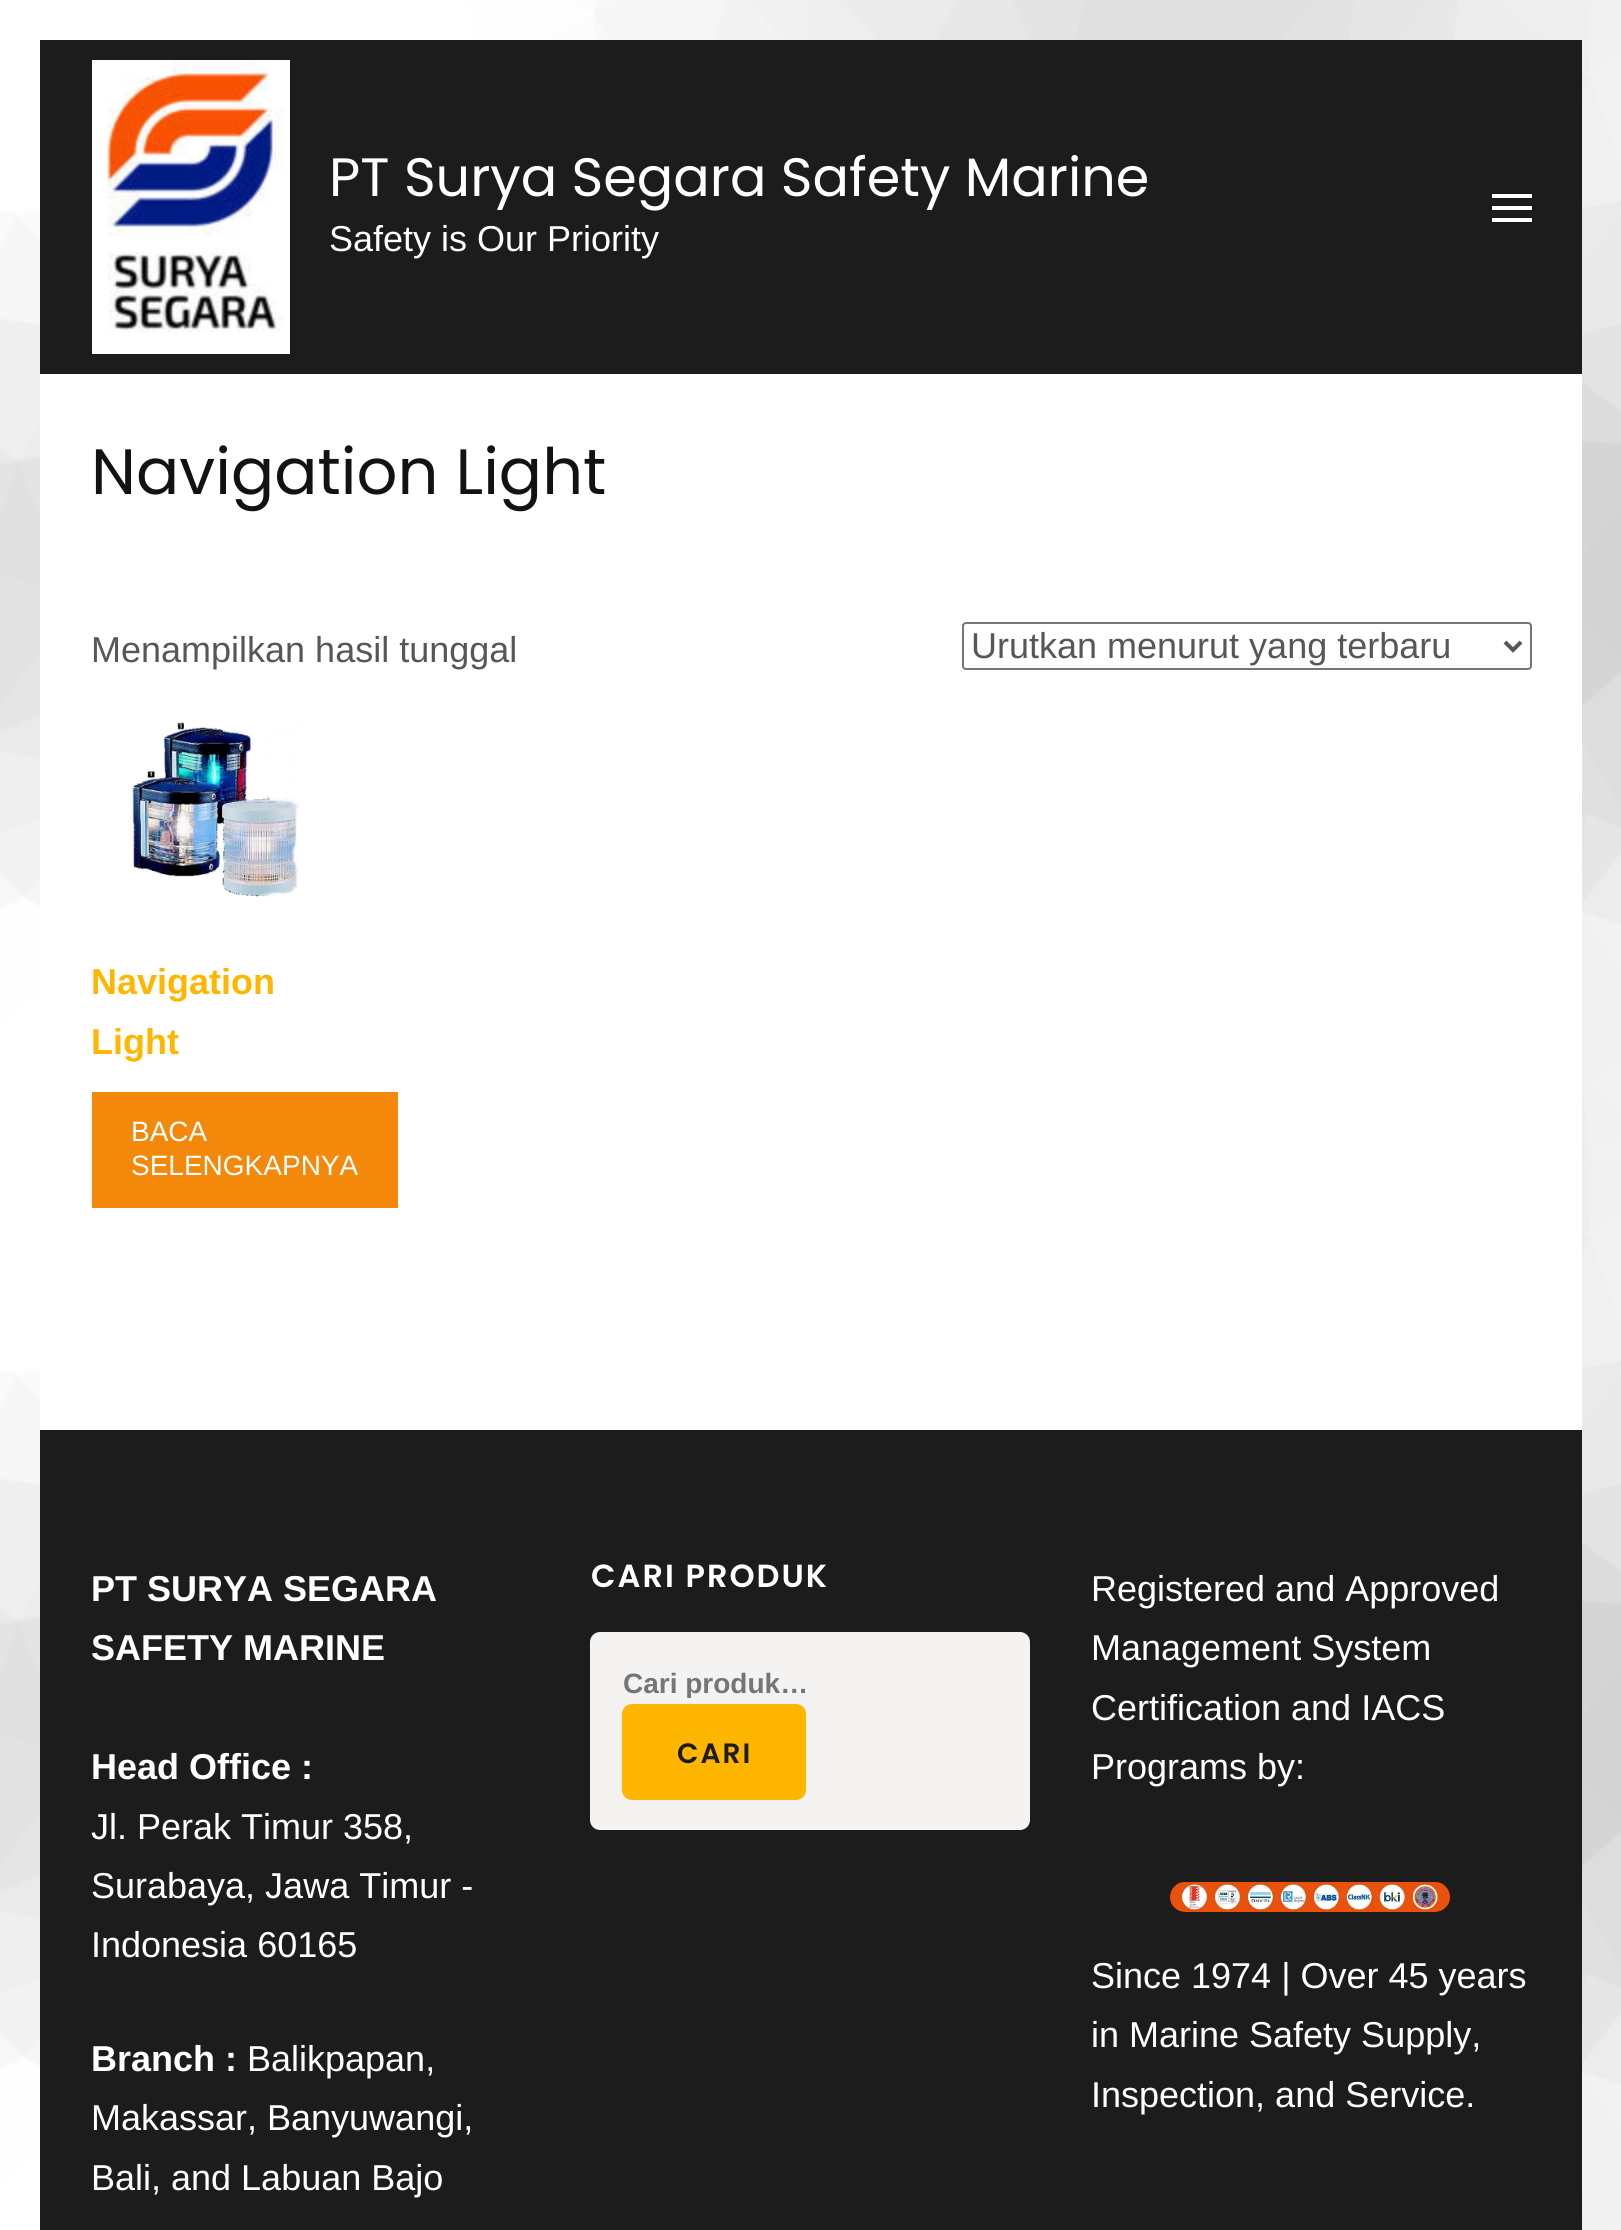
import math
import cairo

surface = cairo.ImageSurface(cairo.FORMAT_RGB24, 1621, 2230)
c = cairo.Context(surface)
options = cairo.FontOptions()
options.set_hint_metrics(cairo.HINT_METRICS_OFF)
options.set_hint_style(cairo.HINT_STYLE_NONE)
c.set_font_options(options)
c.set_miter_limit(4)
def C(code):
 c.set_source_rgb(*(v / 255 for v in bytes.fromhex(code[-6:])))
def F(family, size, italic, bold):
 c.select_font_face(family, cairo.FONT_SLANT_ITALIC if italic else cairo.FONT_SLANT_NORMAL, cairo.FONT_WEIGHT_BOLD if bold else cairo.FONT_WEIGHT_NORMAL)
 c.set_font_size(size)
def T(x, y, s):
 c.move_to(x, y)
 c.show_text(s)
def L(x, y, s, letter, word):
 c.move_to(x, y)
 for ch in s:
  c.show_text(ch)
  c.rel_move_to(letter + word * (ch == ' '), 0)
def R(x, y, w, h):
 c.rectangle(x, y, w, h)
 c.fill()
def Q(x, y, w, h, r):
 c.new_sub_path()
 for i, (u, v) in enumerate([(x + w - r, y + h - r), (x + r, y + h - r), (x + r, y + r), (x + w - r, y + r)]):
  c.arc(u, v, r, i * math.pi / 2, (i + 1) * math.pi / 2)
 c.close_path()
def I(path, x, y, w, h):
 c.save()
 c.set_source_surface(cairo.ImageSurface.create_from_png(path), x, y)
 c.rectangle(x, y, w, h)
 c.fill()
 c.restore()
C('ffffff')
c.paint()
I('1.png',0,0,1621,2230)
C('ffffff')
R(40,374,1542,1056)
C('1c1c1c')
R(40,40,1542,334)
I('2.png',92,60,198,294)
F('Poppins',54,0,0)
C('ffffff')
T(329,196,'PT Surya Segara Safety Marine')
F('Liberation Sans',36,0,0)
T(329,251,'Safety is Our Priority')
R(1492,194,40,4)
R(1492,206,40,4)
R(1492,218,40,4)
F('Poppins',64,0,0)
C('121212')
T(91,494,'Navigation Light')
F('Liberation Sans',36,0,0)
C('585656')
T(91,662,'Menampilkan hasil tunggal')
Q(963,623,568,46,3)
C('767676')
c.stroke()
c.new_path()
c.move_to(1505,642)
c.line_to(1513,650)
c.line_to(1521,642)
C('585656')
c.set_line_width(4)
c.stroke()
T(971,658,'Urutkan menurut yang terbaru')
I('3.png',131,721,169,176)
F('Liberation Sans',36,0,1)
C('ffb600')
T(91,994,'Navigation')
T(91,1054,'Light')
C('f3880a')
R(92,1092,306,116)
F('Liberation Sans',28,0,0)
C('ffffff')
T(131,1141,'BACA')
T(131,1175,'SELENGKAPNYA')
C('1c1c1c')
R(40,1430,1542,800)
F('Liberation Sans',36,0,1)
C('ffffff')
T(91,1601,'PT SURYA SEGARA')
T(91,1660,'SAFETY MARINE')
T(91,1779,'Head Office :')
F('Liberation Sans',36,0,0)
T(91,1839,'Jl. Perak Timur 358,')
T(91,1898,'Surabaya, Jawa Timur -')
T(91,1957,'Indonesia 60165')
F('Liberation Sans',36,0,1)
T(91,2071,'Branch :')
F('Liberation Sans',36,0,0)
T(247,2071,'Balikpapan,')
T(91,2130,'Makassar, Banyuwangi,')
T(91,2190,'Bali, and Labuan Bajo')
F('Poppins SemiBold',32,0,0)
L(591,1587,'CARI PRODUK',2,0)
C('f4f3f2')
Q(590,1632,440,198,10)
c.fill()
c.save()
c.rectangle(622,1666,314,32)
c.clip()
F('Liberation Sans',28,0,1)
C('757575')
T(623,1693,'Cari produk…')
c.restore()
C('ffb600')
Q(624,1706,180,92,8)
c.fill_preserve()
c.stroke()
F('Poppins SemiBold',28,0,0)
C('1c1c1c')
L(677,1763,'CARI',2,0)
F('Liberation Sans',36,0,0)
C('ffffff')
T(1091,1601,'Registered and Approved')
T(1091,1660,'Management System')
T(1091,1720,'Certification and IACS')
T(1091,1779,'Programs by:')
I('4.png',1170,1882,280,30)
T(1091,1988,'Since 1974 | Over 45 years')
T(1091,2047,'in Marine Safety Supply,')
T(1091,2107,'Inspection, and Service.')
surface.write_to_png('o.png')
